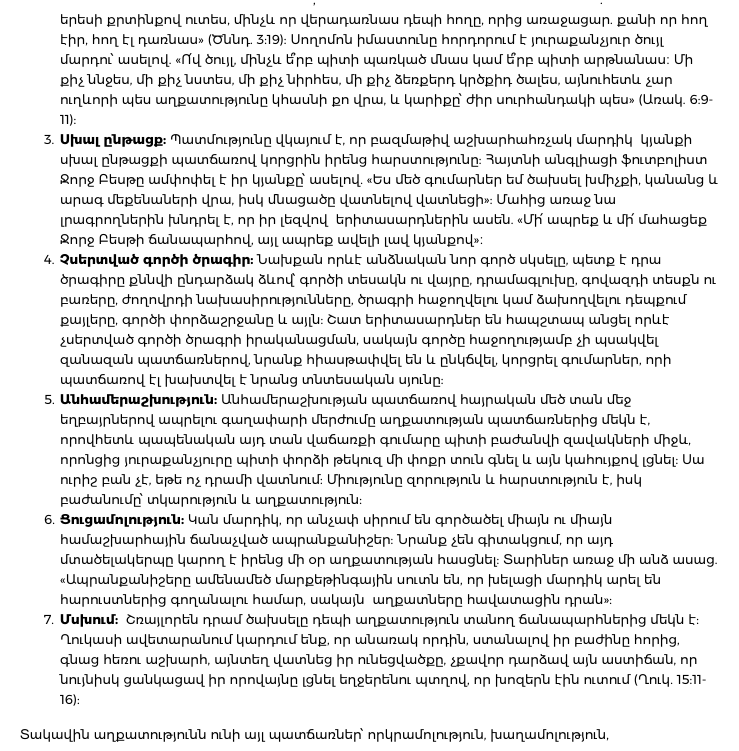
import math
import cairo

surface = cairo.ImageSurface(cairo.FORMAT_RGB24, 739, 751)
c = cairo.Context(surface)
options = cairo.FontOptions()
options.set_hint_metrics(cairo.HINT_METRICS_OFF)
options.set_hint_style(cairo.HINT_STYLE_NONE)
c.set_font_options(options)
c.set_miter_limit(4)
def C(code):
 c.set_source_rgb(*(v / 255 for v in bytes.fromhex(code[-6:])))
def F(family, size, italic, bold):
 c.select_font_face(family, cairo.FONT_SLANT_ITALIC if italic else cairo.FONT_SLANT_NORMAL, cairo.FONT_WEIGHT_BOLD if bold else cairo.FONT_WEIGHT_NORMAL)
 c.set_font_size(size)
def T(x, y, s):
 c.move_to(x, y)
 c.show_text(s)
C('ffffff')
c.paint()
F('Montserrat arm',13,0,0)
C('000000')
T(313,4,',')
T(600,4,'.')
T(60,24,'երեսի քրտինքով ուտես, մինչև որ վերադառնաս դեպի հողը, որից առաջացար. քանի որ հող')
T(60,44,'էիր, հող էլ դառնաս» (Ծննդ. 3:19): Սողոմոն իմաստունը հորդորում է յուրաքանչյուր ծույլ')
T(60,64,'մարդու՝ ասելով. «Ո՛վ ծույլ, մինչև ե՞րբ պիտի պառկած մնաս կամ ե՞րբ պիտի արթնանաս։ Մի')
T(60,84,'քիչ ննջես, մի քիչ նստես, մի քիչ նիրհես, մի քիչ ձեռքերդ կրծքիդ ծալես, այնուհետև չար')
T(60,104,'ուղևորի պես աղքատությունը կհասնի քո վրա, և կարիքը՝ ժիր սուրհանդակի պես» (Առակ. 6:9-')
T(60,124,'11):')
T(44,144,'3.')
F('Montserrat arm',13,0,1)
T(60,144,'Սխալ ընթացք:')
F('Montserrat arm',13,0,0)
T(170,144,'Պատմությունը վկայում է, որ բազմաթիվ աշխարհահռչակ մարդիկ  կյանքի')
T(60,164,'սխալ ընթացքի պատճառով կորցրին իրենց հարստությունը: Հայտնի անգլիացի ֆուտբոլիստ')
T(60,184,'Ջորջ Բեսթը ամփոփել է իր կյանքը՝ ասելով. «Ես մեծ գումարներ եմ ծախսել խմիչքի, կանանց և')
T(60,204,'արագ մեքենաների վրա, իսկ մնացածը վատնելով վատնեցի»: Մահից առաջ նա')
T(60,224,'լրագրողներին խնդրել է, որ իր լեզվով  երիտասարդներին ասեն. «Մի՛ ապրեք և մի՛ մահացեք')
T(60,244,'Ջորջ Բեսթի ճանապարհով, այլ ապրեք ավելի լավ կյանքով»։')
T(44,264,'4.')
F('Montserrat arm',13,0,1)
T(60,264,'Չսերտված գործի ծրագիր:')
F('Montserrat arm',13,0,0)
T(257,264,'Նախքան որևէ անձնական նոր գործ սկսելը, պետք է դրա')
T(60,284,'ծրագիրը քննվի ընդարձակ ձևով՝ գործի տեսակն ու վայրը, դրամագլուխը, գովազդի տեսքն ու')
T(60,304,'բառերը, ժողովրդի նախասիրությունները, ծրագրի հաջողվելու կամ ձախողվելու դեպքում')
T(60,324,'քայլերը, գործի փորձաշրջանը և այլն: Շատ երիտասարդներ են հապշտապ անցել որևէ')
T(60,344,'չսերտված գործի ծրագրի իրականացման, սակայն գործը հաջողությամբ չի պսակվել')
T(60,364,'զանազան պատճառներով, նրանք հիասթափվել են և ընկճվել, կորցրել գումարներ, որի')
T(60,384,'պատճառով էլ խախտվել է նրանց տնտեսական սյունը:')
T(44,404,'5.')
F('Montserrat arm',13,0,1)
T(60,404,'Անհամերաշխություն:')
F('Montserrat arm',13,0,0)
T(221,404,'Անհամերաշխության պատճառով հայրական մեծ տան մեջ')
T(60,424,'եղբայրներով ապրելու գաղափարի մերժումը աղքատության պատճառներից մեկն է,')
T(60,444,'որովհետև պապենական այդ տան վաճառքի գումարը պիտի բաժանվի զավակների միջև,')
T(60,464,'որոնցից յուրաքանչյուրը պիտի փորձի թեկուզ մի փոքր տուն գնել և այն կահույքով լցնել: Սա')
T(60,484,'ուրիշ բան չէ, եթե ոչ դրամի վատնում: Միությունը զորություն և հարստություն է, իսկ')
T(60,504,'բաժանումը՝ տկարություն և աղքատություն:')
T(44,524,'6.')
F('Montserrat arm',13,0,1)
T(60,524,'Ցուցամոլություն:')
F('Montserrat arm',13,0,0)
T(188,524,'Կան մարդիկ, որ անչափ սիրում են գործածել միայն ու միայն')
T(60,544,'համաշխարհային ճանաչված ապրանքանիշեր: Նրանք չեն գիտակցում, որ այդ')
T(60,564,'մտածելակերպը կարող է իրենց մի օր աղքատության հասցնել: Տարիներ առաջ մի անձ ասաց.')
T(60,584,'«Ապրանքանիշերը ամենամեծ մարքեթինգային սուտն են, որ խելացի մարդիկ արել են')
T(60,604,'հարուստներից գողանալու համար, սակայն  աղքատները հավատացին դրան»:')
T(44,624,'7.')
F('Montserrat arm',13,0,1)
T(60,624,'Մսխում:')
F('Montserrat arm',13,0,0)
T(126,624,'Շռայլորեն դրամ ծախսելը դեպի աղքատություն տանող ճանապարհներից մեկն է:')
T(60,644,'Ղուկասի ավետարանում կարդում ենք, որ անառակ որդին, ստանալով իր բաժինը հորից,')
T(60,664,'գնաց հեռու աշխարհ, այնտեղ վատնեց իր ունեցվածքը, չքավոր դարձավ այն աստիճան, որ')
T(60,684,'նույնիսկ ցանկացավ իր որովայնը լցնել եղջերենու պտղով, որ խոզերն էին ուտում (Ղուկ. 15:11-')
T(60,704,'16):')
T(20,739,'Տակավին աղքատությունն ունի այլ պատճառներ՝ որկրամոլություն, խաղամոլություն,')
surface.write_to_png('o.png')
